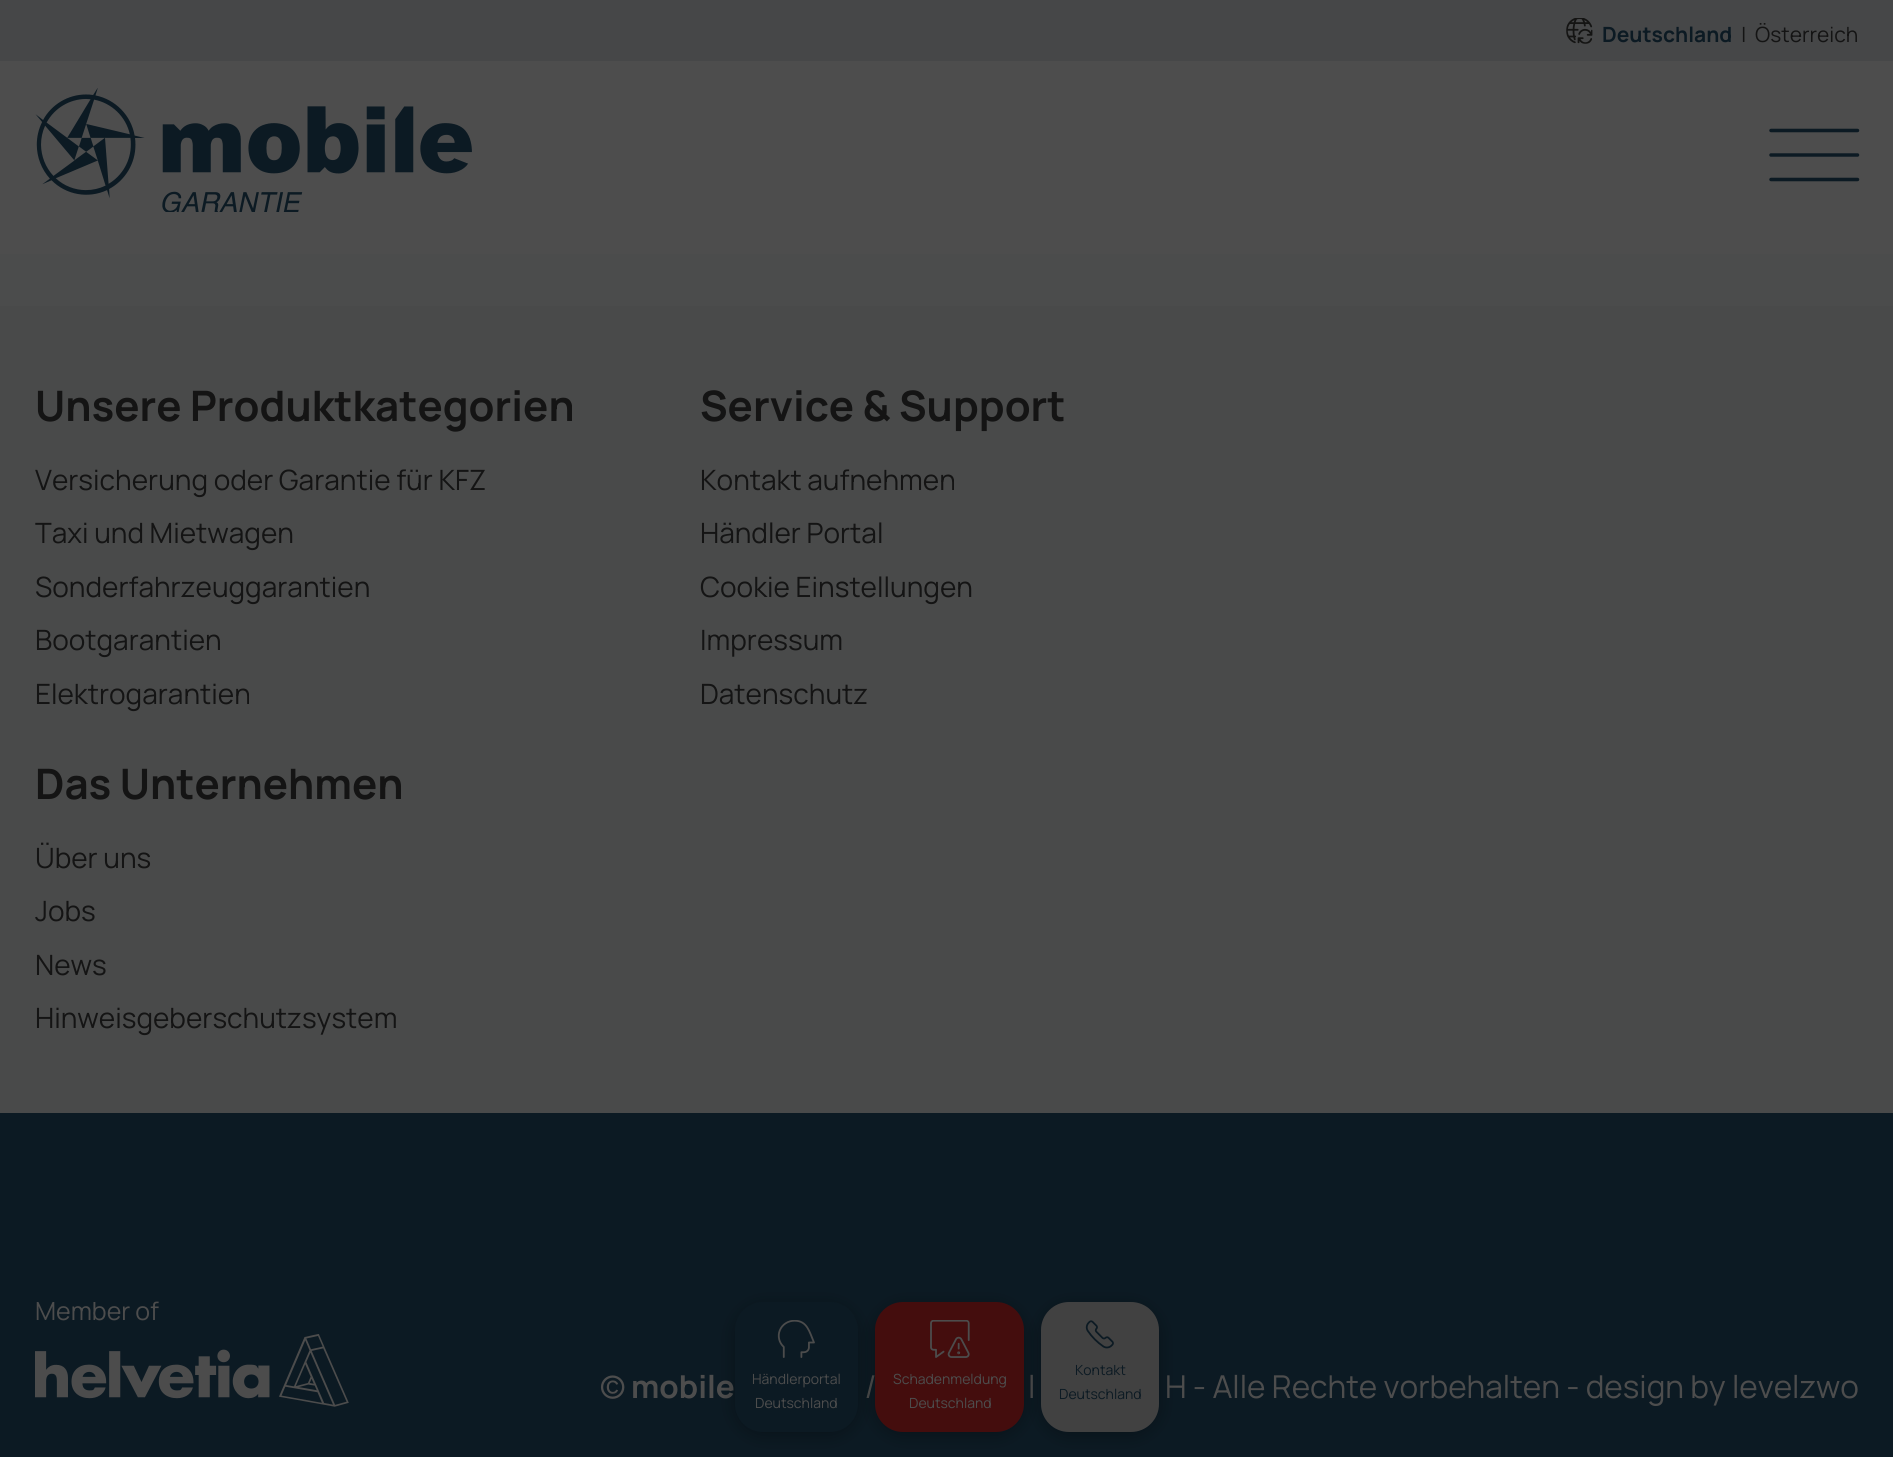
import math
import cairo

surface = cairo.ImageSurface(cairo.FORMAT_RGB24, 1893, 1457)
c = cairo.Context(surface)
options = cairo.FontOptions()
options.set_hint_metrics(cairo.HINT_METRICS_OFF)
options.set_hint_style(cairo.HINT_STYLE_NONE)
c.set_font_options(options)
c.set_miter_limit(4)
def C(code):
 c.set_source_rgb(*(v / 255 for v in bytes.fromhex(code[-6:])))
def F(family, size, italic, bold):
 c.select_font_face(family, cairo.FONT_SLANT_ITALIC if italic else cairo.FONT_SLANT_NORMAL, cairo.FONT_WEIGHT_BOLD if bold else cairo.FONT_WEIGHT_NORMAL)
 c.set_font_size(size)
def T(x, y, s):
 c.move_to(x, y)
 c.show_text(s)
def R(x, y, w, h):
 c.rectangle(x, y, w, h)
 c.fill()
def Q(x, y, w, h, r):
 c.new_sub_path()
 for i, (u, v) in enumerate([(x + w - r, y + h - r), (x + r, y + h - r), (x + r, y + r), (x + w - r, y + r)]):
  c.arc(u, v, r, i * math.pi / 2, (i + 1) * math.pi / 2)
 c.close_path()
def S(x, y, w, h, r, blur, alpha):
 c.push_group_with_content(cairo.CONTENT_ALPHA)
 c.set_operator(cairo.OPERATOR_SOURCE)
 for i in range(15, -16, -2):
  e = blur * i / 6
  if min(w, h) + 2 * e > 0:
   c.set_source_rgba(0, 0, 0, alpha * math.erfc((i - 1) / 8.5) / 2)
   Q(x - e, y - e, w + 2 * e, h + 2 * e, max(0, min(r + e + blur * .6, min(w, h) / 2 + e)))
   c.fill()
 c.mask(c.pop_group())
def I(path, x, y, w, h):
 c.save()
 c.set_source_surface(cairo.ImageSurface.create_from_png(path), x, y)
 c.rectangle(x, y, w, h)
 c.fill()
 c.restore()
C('ffffff')
c.paint()
C('4d4d4d')
R(0,61,1893,193)
C('464748')
R(0,0,1893,61)
I('1.png',1566,18,27,26)
F('Manrope ExtraLight',21,0,0)
C('0c1a23')
T(1602,42,'Deutschland')
F('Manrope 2 ExtraLight',21,0,0)
C('141414')
T(1741,42,'|')
T(1755,42,'Österreich')
I('2.png',35,88,437,124)
c.new_path()
c.move_to(1771,179.5)
c.line_to(1857.5,179.5)
c.move_to(1857.5,130.5)
c.line_to(1771,130.5)
c.move_to(1857.5,155)
c.line_to(1771,155)
C('0c1a23')
c.set_line_width(3.5)
c.set_line_cap(cairo.LINE_CAP_ROUND)
c.stroke()
gradient = cairo.LinearGradient(947,-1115,947,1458)
gradient.add_color_stop_rgba(0,0.286,0.29,0.29,1)
gradient.add_color_stop_rgba(1,0.302,0.302,0.302,1)
c.set_source(gradient)
R(0,254,1893,52)
C('494a4a')
R(0,306,1893,807)
F('Manrope ExtraLight',42,0,0)
C('141414')
T(35,421,'Unsere Produktkategorien')
F('Manrope 2 ExtraLight',28,0,0)
T(35,490,'Versicherung oder Garantie für KFZ')
T(35,543,'Taxi und Mietwagen')
T(35,597,'Sonderfahrzeuggarantien')
T(35,650,'Bootgarantien')
T(35,704,'Elektrogarantien')
F('Manrope ExtraLight',42,0,0)
T(700,421,'Service & Support')
F('Manrope 2 ExtraLight',28,0,0)
T(700,490,'Kontakt aufnehmen')
T(700,543,'Händler Portal')
T(700,597,'Cookie Einstellungen')
T(700,650,'Impressum')
T(700,704,'Datenschutz')
F('Manrope ExtraLight',42,0,0)
T(35,799,'Das Unternehmen')
F('Manrope 2 ExtraLight',28,0,0)
T(35,868,'Über uns')
T(35,921,'Jobs')
T(35,975,'News')
T(35,1028,'Hinweisgeberschutzsystem')
C('0c1a23')
R(0,1113,1893,344)
F('Manrope 2 ExtraLight',25,0,0)
C('4d4d4d')
T(35,1320,'Member of')
I('3.png',35,1334,314,73)
F('Manrope 2 ExtraLight',31.5,0,0)
T(600,1398,'©')
F('Manrope ExtraLight',31.5,0,0)
T(631,1398,'mobile')
F('Manrope ExtraLight',31.5,1,0)
T(864,1398,'I')
F('Manrope 2 ExtraLight',31.5,0,0)
T(1028,1398,'l')
T(1165,1398,'H - Alle Rechte vorbehalten - design by levelzwo')
C('000000')
S(735,1306,123,129,28,9,.3)
C('0c1a23')
Q(735,1302,123,130,28)
c.fill()
I('4.png',777,1320,38,38)
F('Manrope 2 ExtraLight',14,0,0)
C('4d4d4d')
T(752,1384,'Händlerportal')
T(755,1408,'Deutschland')
C('000000')
S(875,1306,149,129,28,9,.3)
C('440d0d')
Q(875,1302,149,130,28)
c.fill()
I('5.png',930,1320,40,38)
C('4d4d4d')
T(893,1384,'Schadenmeldung')
T(909,1408,'Deutschland')
C('000000')
S(1041,1306,118,129,28,9,.3)
C('414141')
Q(1041,1302,118,130,28)
c.fill()
I('6.png',1085,1320,29,29)
C('0c1a23')
T(1075,1375,'Kontakt')
T(1059,1399,'Deutschland')
surface.write_to_png('o.png')
